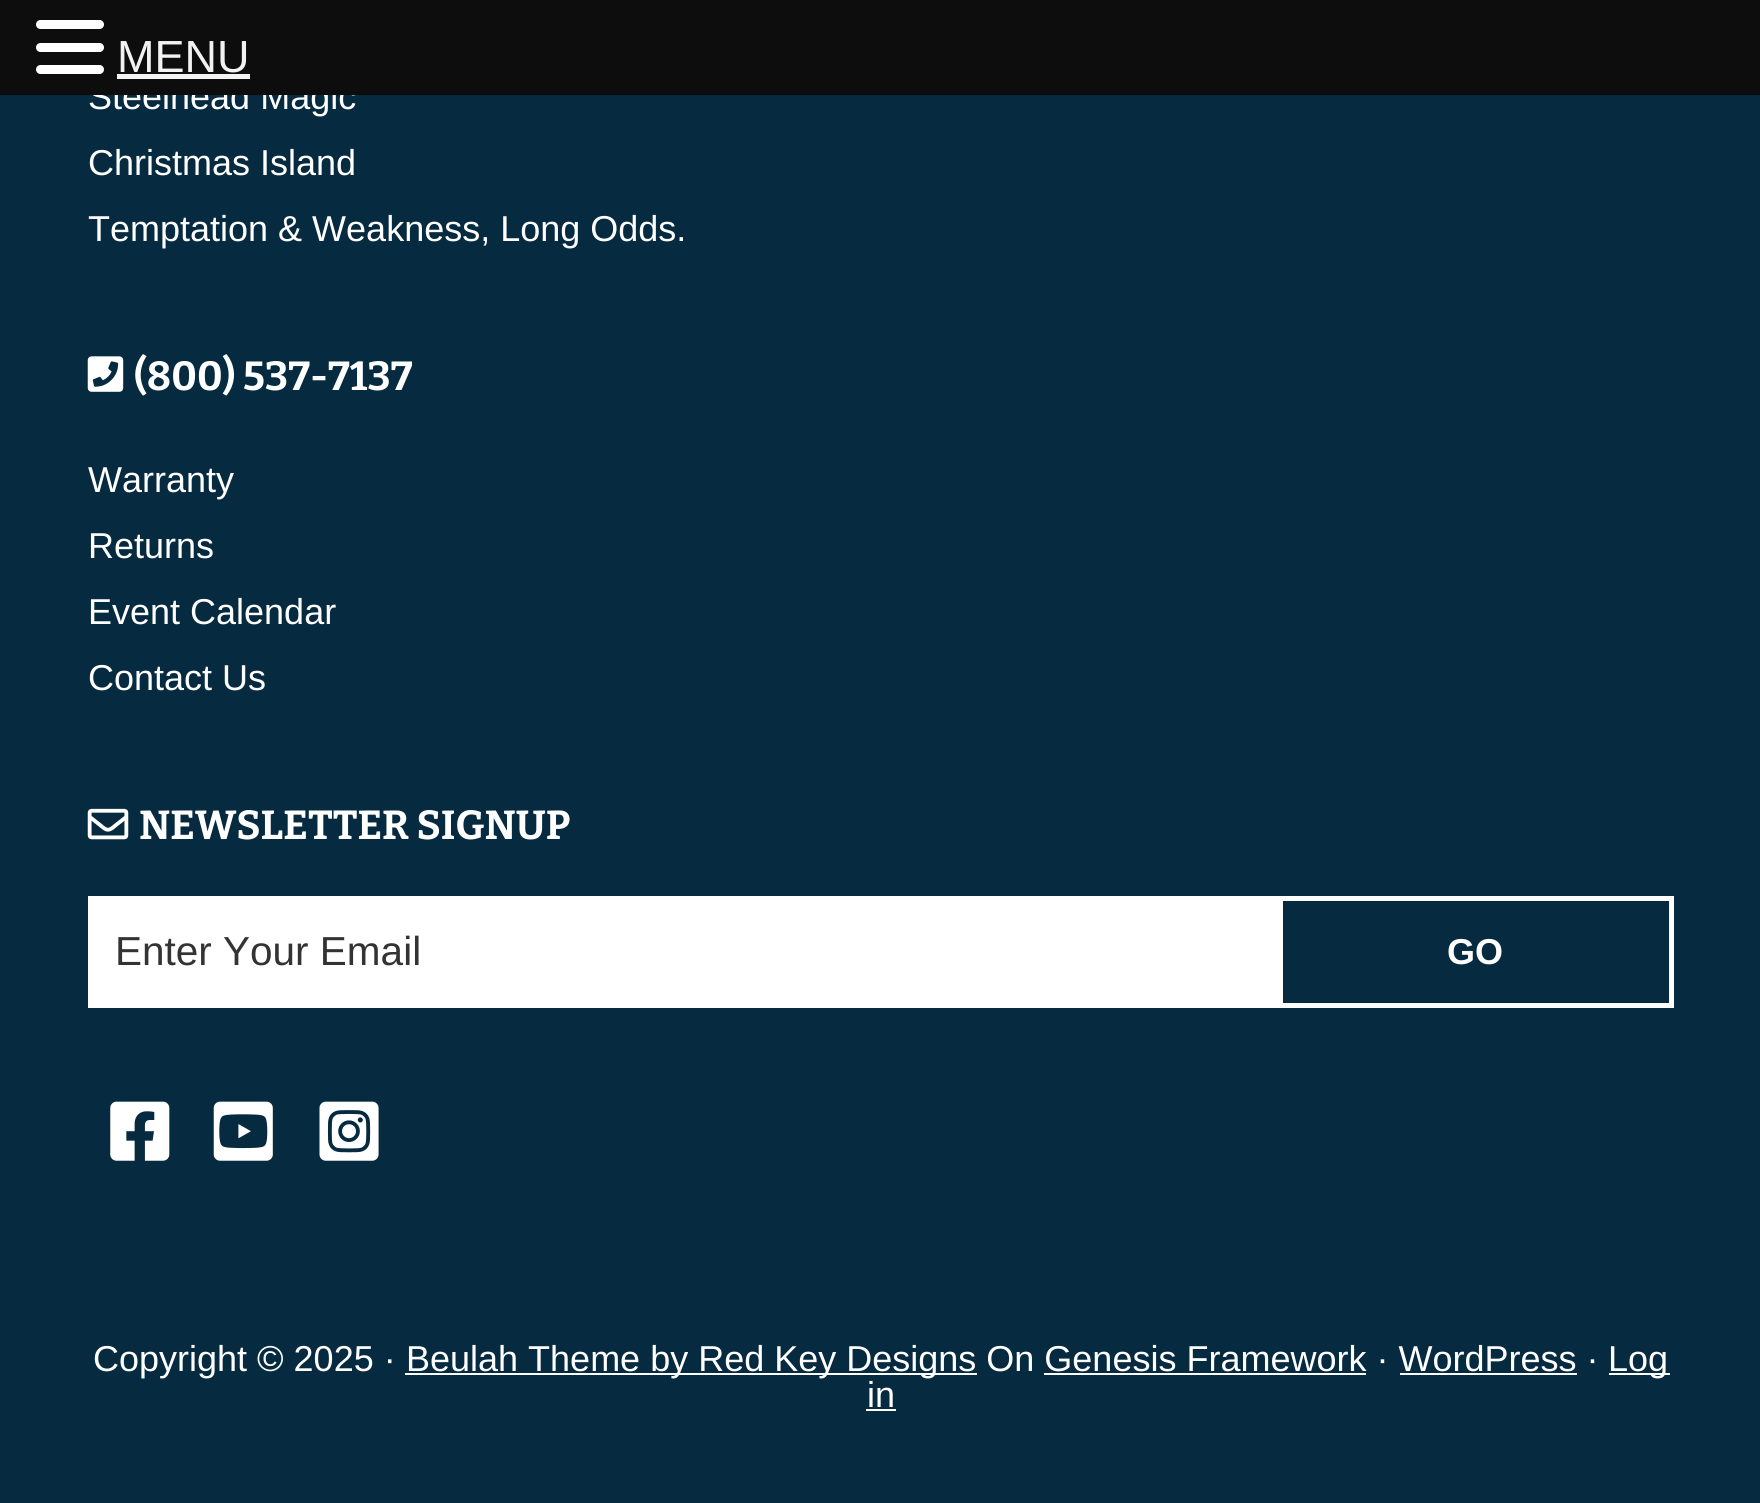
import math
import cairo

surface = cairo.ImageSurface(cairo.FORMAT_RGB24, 1760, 1503)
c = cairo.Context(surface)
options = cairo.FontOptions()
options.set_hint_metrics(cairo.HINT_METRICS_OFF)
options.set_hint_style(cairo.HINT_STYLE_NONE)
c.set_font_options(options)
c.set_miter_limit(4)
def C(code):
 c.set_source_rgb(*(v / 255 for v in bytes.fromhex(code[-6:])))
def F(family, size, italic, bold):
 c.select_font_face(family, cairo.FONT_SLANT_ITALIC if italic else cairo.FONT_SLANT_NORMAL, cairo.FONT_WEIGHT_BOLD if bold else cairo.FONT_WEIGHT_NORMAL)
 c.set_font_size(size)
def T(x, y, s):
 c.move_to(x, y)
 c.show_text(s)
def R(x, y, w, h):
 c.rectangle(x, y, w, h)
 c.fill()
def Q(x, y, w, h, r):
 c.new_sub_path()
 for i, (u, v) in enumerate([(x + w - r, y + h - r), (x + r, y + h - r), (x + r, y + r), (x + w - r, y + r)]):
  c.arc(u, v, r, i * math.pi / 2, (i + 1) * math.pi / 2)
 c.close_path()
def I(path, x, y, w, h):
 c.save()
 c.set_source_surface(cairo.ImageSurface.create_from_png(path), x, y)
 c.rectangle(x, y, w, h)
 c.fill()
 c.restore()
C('062a3f')
c.paint()
F('Liberation Sans',36,0,0)
C('ffffff')
T(88,109,'Steelhead Magic')
C('0d0d0d')
R(0,0,1760,95)
C('ffffff')
Q(36,20,68,9,4.5)
c.fill()
Q(36,43,68,9,4.5)
c.fill()
Q(36,65,68,9,4.5)
c.fill()
F('Liberation Sans',45,0,0)
C('f2f2f2')
T(117,72,'MENU')
R(117,74,133,5)
F('Liberation Sans',36,0,0)
C('ffffff')
T(88,175,'Christmas Island')
T(88,241,'Temptation & Weakness, Long Odds.')
I('1.png',87,356,37,36)
F('Bitter',40.5,0,1)
T(134,390,'(800) 537-7137')
F('Liberation Sans',36,0,0)
T(88,492,'Warranty')
T(88,558,'Returns')
T(88,624,'Event Calendar')
T(88,690,'Contact Us')
I('2.png',87,808,42,32)
F('Bitter',40.5,0,1)
T(139,839,'NEWSLETTER SIGNUP')
R(88,896,1190,112)
F('Liberation Sans',40.5,0,0)
C('333333')
T(115,965,'Enter Your Email')
c.rectangle(1280.5,898.5,391,107)
C('ffffff')
c.set_line_width(5)
c.stroke()
F('Liberation Sans',36,0,1)
T(1447,964,'GO')
I('3.png',110,1101,60,60)
I('4.png',213,1101,60,60)
I('5.png',319,1101,60,60)
F('Liberation Sans',36,0,0)
T(93,1371,'Copyright © 2025 ·')
R(405,1373,572,2)
T(406,1371,'Beulah Theme by Red Key Designs On Genesis Framework · WordPress ·')
R(1609,1373,61,2)
T(1608,1371,'Log')
R(1044,1373,322,2)
R(1400,1373,177,2)
T(867,1407,'in')
R(866,1409,30,2)
surface.write_to_png('o.png')
